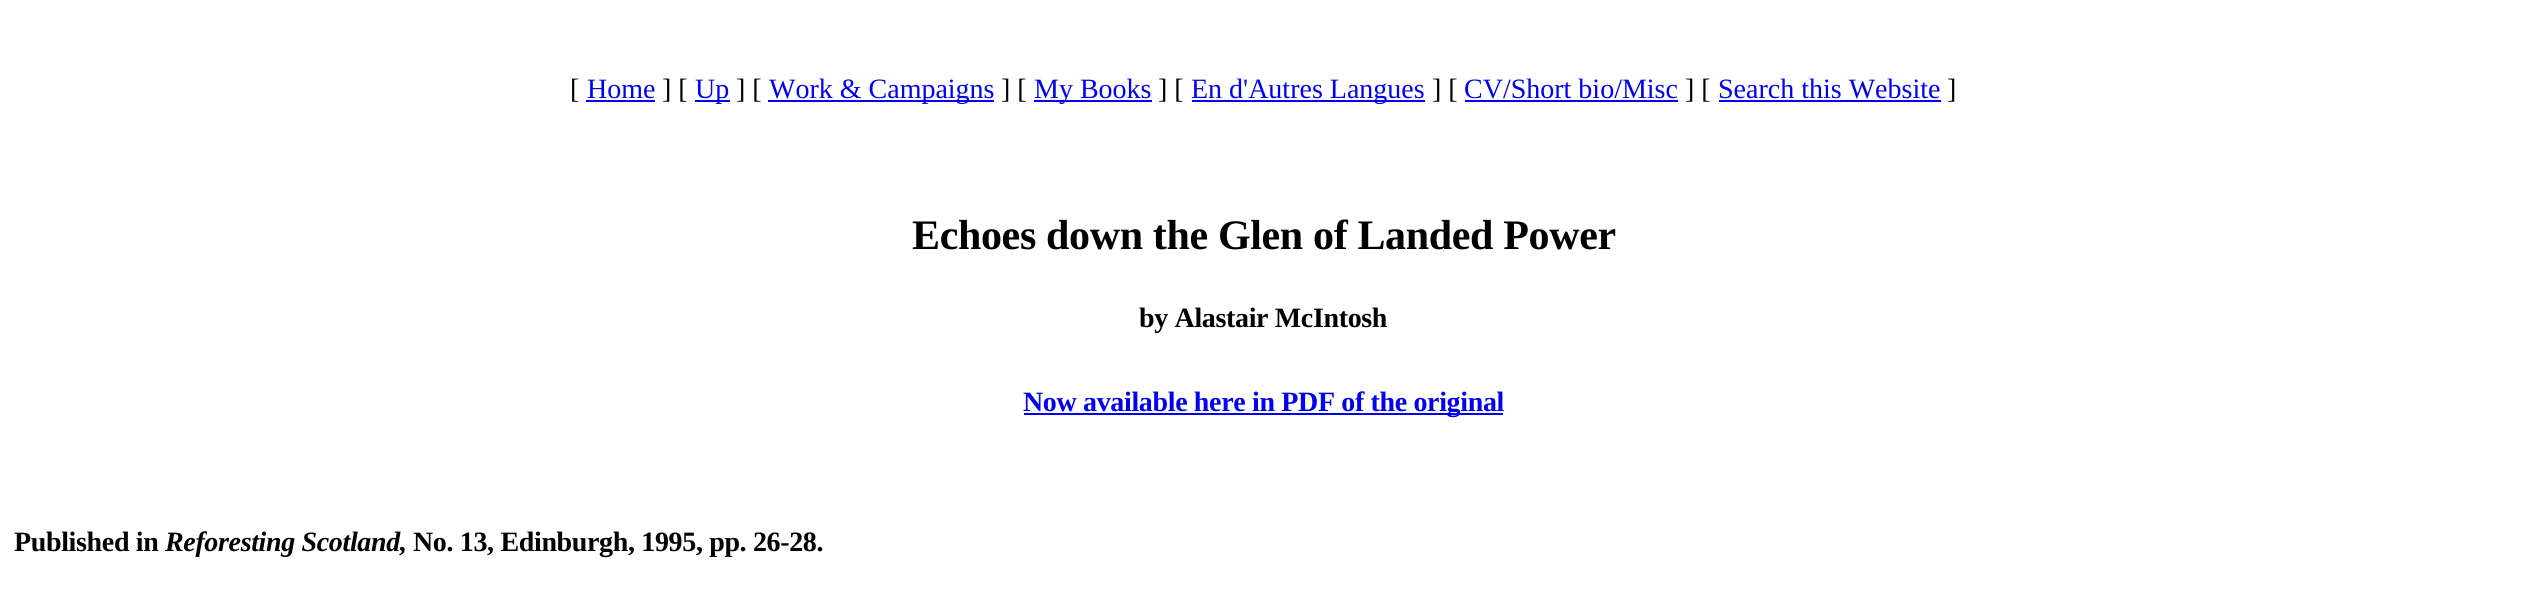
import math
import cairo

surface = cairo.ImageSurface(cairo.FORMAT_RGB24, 2527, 601)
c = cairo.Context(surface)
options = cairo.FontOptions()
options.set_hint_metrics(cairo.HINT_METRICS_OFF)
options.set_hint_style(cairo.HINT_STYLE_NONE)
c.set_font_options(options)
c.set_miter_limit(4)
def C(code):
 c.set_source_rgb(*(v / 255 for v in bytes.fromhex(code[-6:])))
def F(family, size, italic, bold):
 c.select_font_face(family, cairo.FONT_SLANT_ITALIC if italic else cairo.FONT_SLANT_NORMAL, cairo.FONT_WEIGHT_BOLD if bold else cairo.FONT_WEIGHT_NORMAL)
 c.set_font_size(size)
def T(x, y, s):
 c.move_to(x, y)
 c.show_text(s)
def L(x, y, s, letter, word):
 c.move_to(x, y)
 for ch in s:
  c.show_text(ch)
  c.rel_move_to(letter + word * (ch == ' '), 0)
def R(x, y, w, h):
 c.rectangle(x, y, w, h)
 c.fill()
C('ffffff')
c.paint()
F('Liberation Serif',28,0,0)
C('000000')
T(570,98,'[')
C('0000ee')
T(587,98,'Home')
R(586,100,69,2)
C('000000')
T(662,98,'] [')
C('0000ee')
R(695,100,35,2)
T(695,98,'Up')
C('000000')
T(736,98,'] [')
C('0000ee')
R(768,100,226,2)
T(769,98,'Work & Campaigns')
C('000000')
T(1001,98,'] [')
C('0000ee')
R(1034,100,118,2)
T(1034,98,'My Books')
C('000000')
T(1158,98,'] [')
C('0000ee')
R(1192,100,233,2)
T(1191,98,'En d\'Autres Langues')
C('000000')
T(1432,98,'] [')
C('0000ee')
T(1464,98,'CV/Short bio/Misc')
R(1465,100,213,2)
C('000000')
T(1685,98,'] [')
C('0000ee')
T(1718,98,'Search this Website')
R(1719,100,222,2)
C('000000')
T(1947,98,']')
F('Liberation Serif',42,0,1)
L(912,249,'Echoes down the Glen of Landed Power',-.35,0)
F('Liberation Serif',28,0,1)
L(1139,327,'by Alastair McIntosh',-.35,0)
C('0000ee')
R(1024,413,479,2)
L(1023,411,'Now available here in PDF of the original',-.35,0)
C('000000')
L(14,551,'Published in',-.35,0)
F('Liberation Serif',28,1,1)
L(165,551,'Reforesting Scotland,',-.35,0)
F('Liberation Serif',28,0,1)
L(413,551,'No. 13, Edinburgh, 1995, pp. 26-28.',-.35,0)
surface.write_to_png('o.png')
